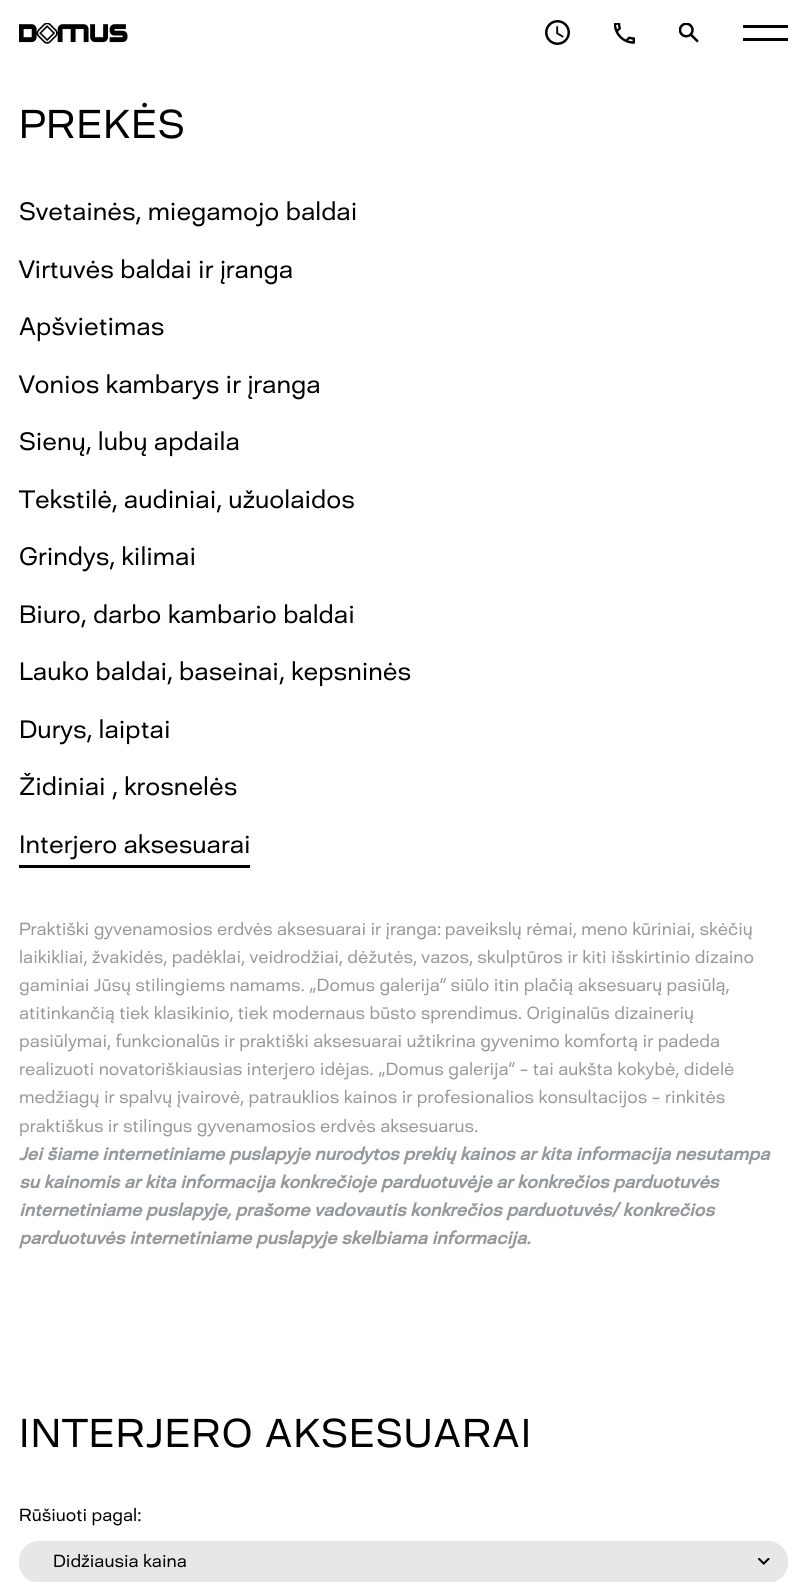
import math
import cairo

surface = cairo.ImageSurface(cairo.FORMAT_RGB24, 806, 1582)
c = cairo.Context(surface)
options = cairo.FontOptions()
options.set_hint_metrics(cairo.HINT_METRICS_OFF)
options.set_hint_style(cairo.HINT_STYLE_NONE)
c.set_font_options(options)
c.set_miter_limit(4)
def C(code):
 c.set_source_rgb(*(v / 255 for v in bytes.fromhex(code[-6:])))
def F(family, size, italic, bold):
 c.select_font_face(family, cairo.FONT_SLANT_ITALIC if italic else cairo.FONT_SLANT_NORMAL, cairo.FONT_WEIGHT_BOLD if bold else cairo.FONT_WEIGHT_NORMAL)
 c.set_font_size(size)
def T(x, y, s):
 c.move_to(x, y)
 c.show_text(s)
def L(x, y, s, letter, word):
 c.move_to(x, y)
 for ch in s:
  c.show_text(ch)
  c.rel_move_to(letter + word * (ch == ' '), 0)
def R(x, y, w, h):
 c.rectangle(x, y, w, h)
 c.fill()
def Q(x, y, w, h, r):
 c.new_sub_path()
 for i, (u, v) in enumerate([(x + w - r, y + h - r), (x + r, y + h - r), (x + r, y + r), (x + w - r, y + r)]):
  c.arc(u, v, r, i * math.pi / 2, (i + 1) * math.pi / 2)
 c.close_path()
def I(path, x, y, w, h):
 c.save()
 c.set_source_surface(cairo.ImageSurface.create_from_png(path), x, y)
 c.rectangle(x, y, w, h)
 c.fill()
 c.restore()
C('ffffff')
c.paint()
I('1.png',19,23,109,21)
I('2.png',545,20,25,25)
I('3.png',614,23,21,21)
I('4.png',679,23,20,20)
C('000000')
R(743,25,45,3)
R(743,38,45,3)
F('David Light',40,0,0)
L(19,138,'PREKĖS',1.25,0)
F('David Light',25,0,0)
T(19,220,'Svetainės, miegamojo baldai')
T(19,278,'Virtuvės baldai ir įranga')
T(19,335,'Apšvietimas')
T(19,393,'Vonios kambarys ir įranga')
T(19,450,'Sienų, lubų apdaila')
T(19,508,'Tekstilė, audiniai, užuolaidos')
T(19,565,'Grindys, kilimai')
T(19,623,'Biuro, darbo kambario baldai')
T(19,680,'Lauko baldai, baseinai, kepsninės')
T(19,738,'Durys, laiptai')
T(19,795,'Židiniai , krosnelės')
T(19,853,'Interjero aksesuarai')
R(19,865,231,3)
F('David Light',17.5,0,0)
C('96999c')
T(19,935,'Praktiški gyvenamosios erdvės aksesuarai ir įranga: paveikslų rėmai, meno kūriniai, skėčių')
T(19,963,'laikikliai, žvakidės, padėklai, veidrodžiai, dėžutės, vazos, skulptūros ir kiti išskirtinio dizaino')
T(19,991,'gaminiai Jūsų stilingiems namams. „Domus galerija“ siūlo itin plačią aksesuarų pasiūlą,')
T(19,1019,'atitinkančią tiek klasikinio, tiek modernaus būsto sprendimus. Originalūs dizainerių')
T(19,1047,'pasiūlymai, funkcionalūs ir praktiški aksesuarai užtikrina gyvenimo komfortą ir padeda')
T(19,1075,'realizuoti novatoriškiausias interjero idėjas. „Domus galerija“ – tai aukšta kokybė, didelė')
T(19,1103,'medžiagų ir spalvų įvairovė, patrauklios kainos ir profesionalios konsultacijos – rinkitės')
T(19,1132,'praktiškus ir stilingus gyvenamosios erdvės aksesuarus.')
F('David',17.5,1,1)
T(19,1160,'Jei šiame internetiniame puslapyje nurodytos prekių kainos ar kita informacija nesutampa')
T(19,1188,'su kainomis ar kita informacija konkrečioje parduotuvėje ar konkrečios parduotuvės')
T(19,1216,'internetiniame puslapyje, prašome vadovautis konkrečios parduotuvės/ konkrečios')
T(19,1244,'parduotuvės internetiniame puslapyje skelbiama informacija.')
F('David Light',40,0,0)
C('000000')
L(19,1447,'INTERJERO AKSESUARAI',1.25,0)
F('David Light',17.5,0,0)
T(19,1521,'Rūšiuoti pagal:')
C('e6e7e7')
Q(19,1541,769,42,20)
c.fill()
C('000000')
T(53,1567,'Didžiausia kaina')
I('5.png',758,1558,12,7)
surface.write_to_png('o.png')
